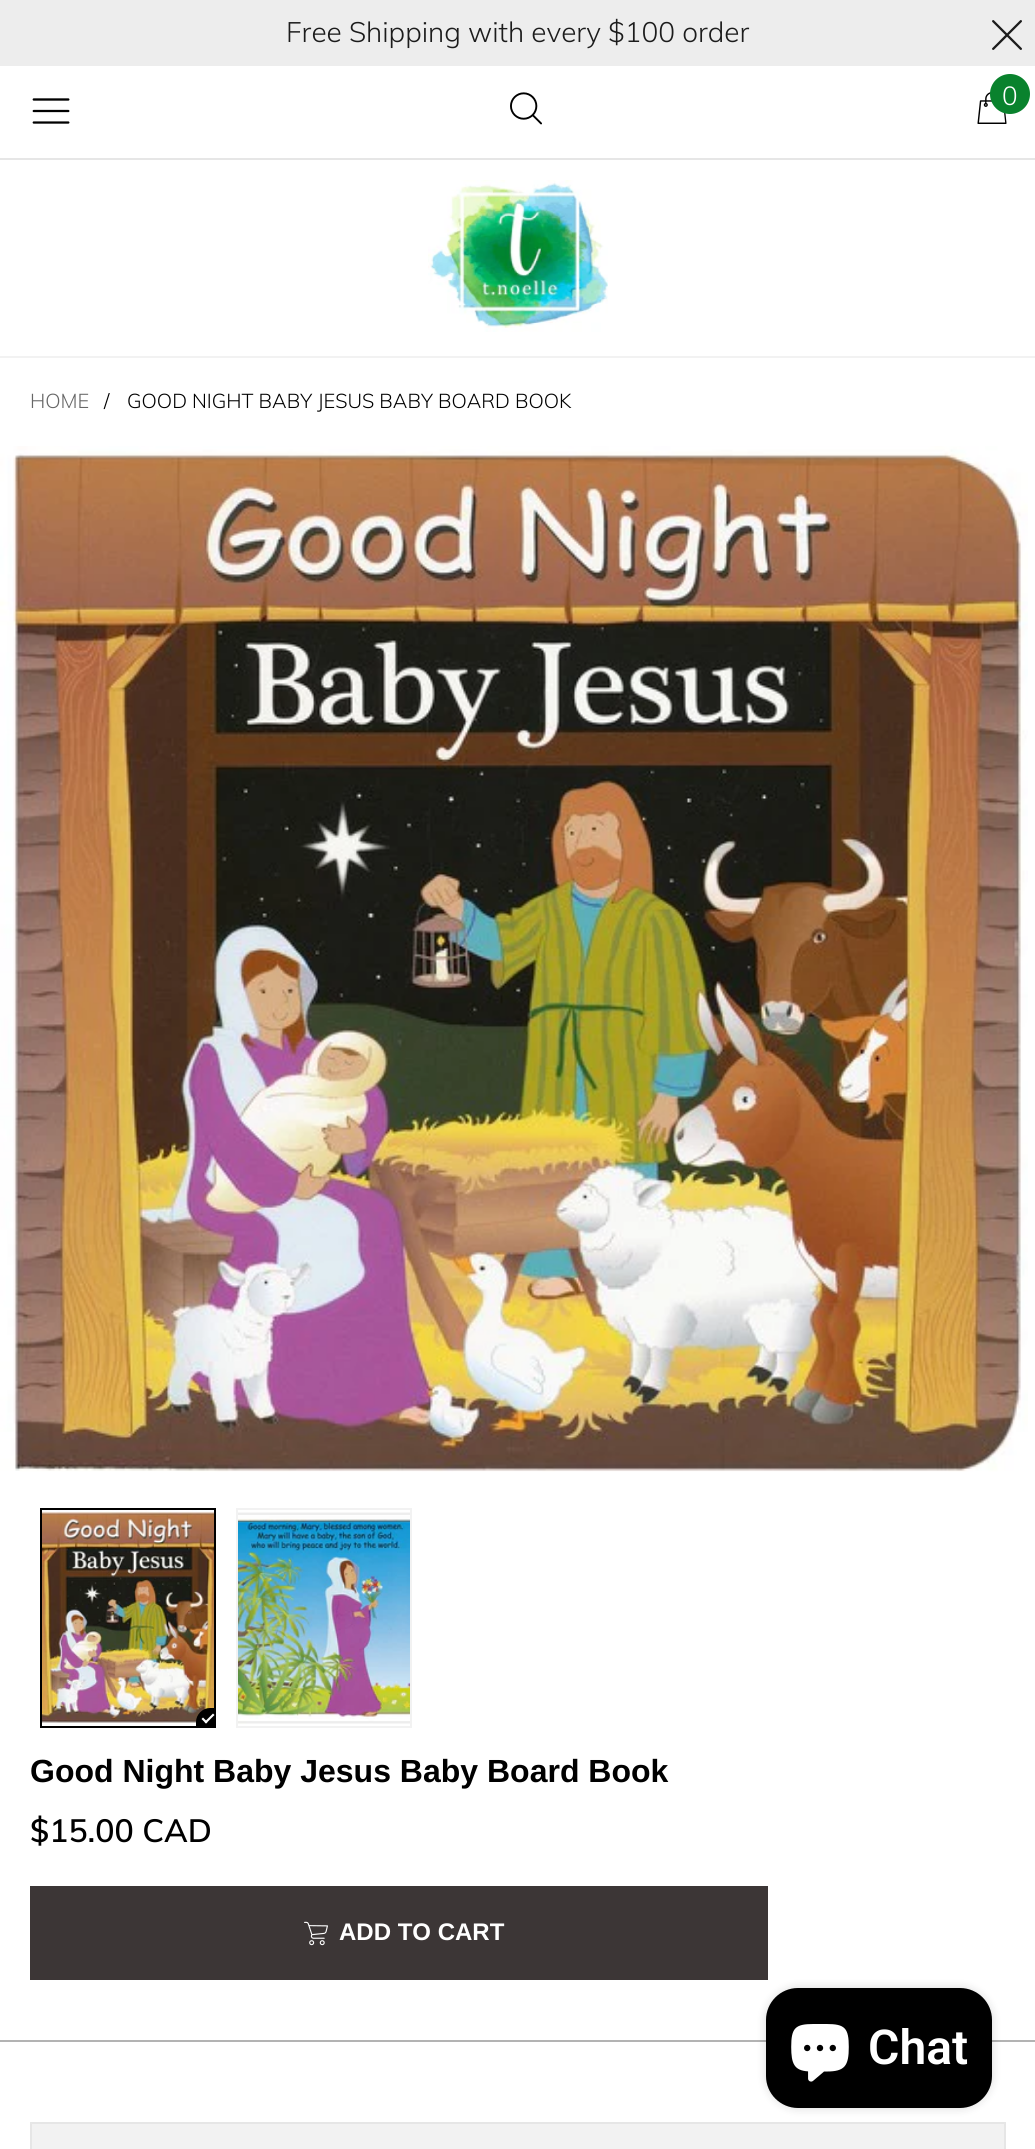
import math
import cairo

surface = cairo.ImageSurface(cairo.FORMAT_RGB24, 1035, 2149)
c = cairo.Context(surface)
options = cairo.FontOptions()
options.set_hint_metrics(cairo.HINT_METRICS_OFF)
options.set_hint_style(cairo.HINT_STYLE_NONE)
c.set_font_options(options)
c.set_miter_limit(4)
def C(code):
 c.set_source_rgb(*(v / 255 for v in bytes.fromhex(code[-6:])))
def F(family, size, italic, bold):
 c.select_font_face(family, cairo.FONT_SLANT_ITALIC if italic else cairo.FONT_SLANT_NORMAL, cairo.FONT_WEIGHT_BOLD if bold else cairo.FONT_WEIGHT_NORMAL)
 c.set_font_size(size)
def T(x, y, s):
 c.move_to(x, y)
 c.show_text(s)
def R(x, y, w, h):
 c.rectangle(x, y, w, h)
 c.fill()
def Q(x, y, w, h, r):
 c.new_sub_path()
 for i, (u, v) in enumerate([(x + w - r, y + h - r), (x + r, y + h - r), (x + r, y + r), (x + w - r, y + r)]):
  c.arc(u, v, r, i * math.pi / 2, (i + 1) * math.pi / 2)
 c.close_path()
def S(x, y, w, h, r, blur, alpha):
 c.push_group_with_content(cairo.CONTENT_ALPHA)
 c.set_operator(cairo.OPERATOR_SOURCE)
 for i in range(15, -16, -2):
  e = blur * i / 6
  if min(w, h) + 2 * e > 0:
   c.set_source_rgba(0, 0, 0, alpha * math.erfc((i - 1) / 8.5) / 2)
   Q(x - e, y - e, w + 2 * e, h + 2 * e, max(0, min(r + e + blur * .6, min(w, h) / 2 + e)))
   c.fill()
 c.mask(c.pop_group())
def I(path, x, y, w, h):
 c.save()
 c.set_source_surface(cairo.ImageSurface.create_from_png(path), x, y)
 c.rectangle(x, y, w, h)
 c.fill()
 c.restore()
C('ffffff')
c.paint()
C('ededed')
R(0,0,1035,66)
F('Muli Light',28,0,0)
C('1c1c1c')
T(286,42,'Free Shipping with every $100 order')
I('1.png',992,20,30,30)
C('f2f2f2')
R(0,356,1035,2)
I('2.png',32,98,38,26)
I('3.png',510,92,32,33)
I('4.png',977,92,30,32)
C('09822d')
c.arc(1010,94,20,0,2 * math.pi)
c.fill()
F('Muli Light',26,0,0)
C('ffffff')
T(1002,105,'0')
C('e6e6e6')
R(0,158,1035,2)
I('5.png',428,180,180,152)
F('Muli Light',20,0,0)
C('666666')
T(30,408,'HOME')
C('000000')
T(104,408,'/')
T(127,408,'GOOD NIGHT BABY JESUS BABY BOARD BOOK')
I('6.png',0,446,1028,1026)
c.rectangle(41,1509,174,218)
c.stroke()
I('7.png',42,1510,172,214)
c.new_path()
c.move_to(210,1708)
c.line_to(216,1708)
c.line_to(216,1728)
c.line_to(196,1728)
c.line_to(196,1722)
c.curve_to(196,1714.5,202.5,1708,210,1708)
c.close_path()
c.fill()
C('ffffff')
c.new_path()
c.move_to(204.5,1722)
c.line_to(213,1713.5)
c.line_to(214.5,1715)
c.line_to(206,1723.5)
c.close_path()
c.fill()
c.new_path()
c.move_to(201.5,1719)
c.line_to(203,1717.5)
c.line_to(207.5,1722)
c.line_to(206,1723.5)
c.close_path()
c.fill()
c.rectangle(237,1509,174,218)
C('f2f2f2')
c.stroke()
I('8.png',238,1512,172,212)
F('Liberation Sans',32,0,1)
C('000000')
T(30,1782,'Good Night Baby Jesus Baby Board Book')
F('Muli SemiBold',32,0,0)
T(30,1842,'$15.00 CAD')
C('3c3636')
R(30,1886,738,94)
I('9.png',304,1921,24,25)
F('Liberation Sans',24,0,1)
C('ffffff')
T(339,1940,'ADD TO CART')
C('b3b3b3')
R(0,2040,1035,2)
C('e6e6e6')
c.new_path()
c.move_to(30,2122)
c.line_to(1006,2122)
c.line_to(1004,2124)
c.line_to(32,2124)
c.close_path()
c.fill()
c.set_source_rgba(0,0,0,0.1)
c.new_path()
c.move_to(1006,2122)
c.line_to(1006,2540)
c.line_to(1004,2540)
c.line_to(1004,2124)
c.close_path()
c.fill()
c.new_path()
c.move_to(30,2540)
c.line_to(30,2122)
c.line_to(32,2124)
c.line_to(32,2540)
c.close_path()
c.fill()
C('f2f2f2')
R(32,2124,972,25)
C('000000')
S(766,1988,226,120,32,5,.15)
C('000000')
Q(766,1988,226,120,32)
c.fill()
I('10.png',791,2024,58,58)
F('Roboto SemiBold',48,0,0)
C('ffffff')
T(868,2064,'Chat')
surface.write_to_png('o.png')
